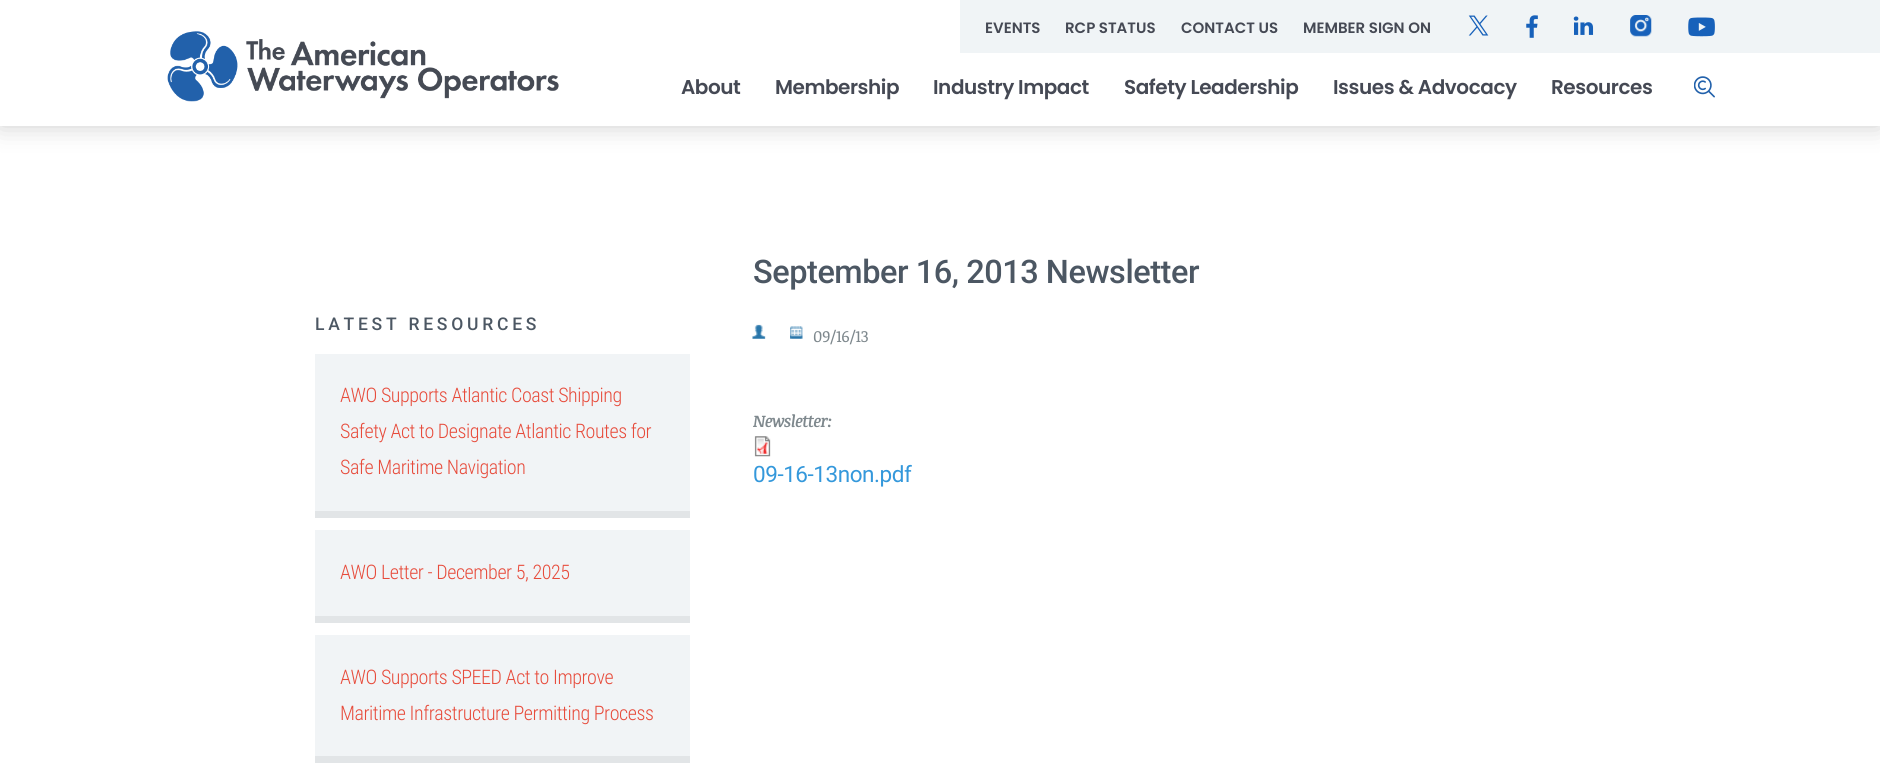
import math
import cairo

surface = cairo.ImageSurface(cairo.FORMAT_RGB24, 1880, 768)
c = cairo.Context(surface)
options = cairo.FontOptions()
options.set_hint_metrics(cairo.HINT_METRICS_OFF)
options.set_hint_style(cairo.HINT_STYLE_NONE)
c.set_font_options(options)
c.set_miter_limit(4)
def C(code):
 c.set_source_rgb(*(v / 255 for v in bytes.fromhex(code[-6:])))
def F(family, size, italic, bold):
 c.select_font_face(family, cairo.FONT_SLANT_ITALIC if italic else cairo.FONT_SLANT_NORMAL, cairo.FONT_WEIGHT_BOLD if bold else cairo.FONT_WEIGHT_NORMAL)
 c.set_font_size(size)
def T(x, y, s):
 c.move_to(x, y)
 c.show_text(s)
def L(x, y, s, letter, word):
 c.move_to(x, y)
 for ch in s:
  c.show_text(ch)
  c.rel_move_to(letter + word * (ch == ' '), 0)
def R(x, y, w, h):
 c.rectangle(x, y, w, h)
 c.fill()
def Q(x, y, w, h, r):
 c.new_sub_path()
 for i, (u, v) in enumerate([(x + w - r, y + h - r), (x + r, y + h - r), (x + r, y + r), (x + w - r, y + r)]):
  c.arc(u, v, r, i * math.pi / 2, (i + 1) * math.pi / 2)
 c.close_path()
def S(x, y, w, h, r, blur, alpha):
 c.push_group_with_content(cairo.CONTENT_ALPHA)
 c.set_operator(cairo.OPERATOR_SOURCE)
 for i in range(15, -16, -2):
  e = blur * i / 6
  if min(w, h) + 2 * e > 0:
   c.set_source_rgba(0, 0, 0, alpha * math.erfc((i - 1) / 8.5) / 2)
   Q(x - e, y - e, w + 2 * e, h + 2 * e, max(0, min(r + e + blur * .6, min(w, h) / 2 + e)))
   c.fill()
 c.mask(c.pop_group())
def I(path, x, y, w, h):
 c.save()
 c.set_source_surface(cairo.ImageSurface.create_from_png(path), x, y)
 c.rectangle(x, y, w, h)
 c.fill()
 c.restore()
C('ffffff')
c.paint()
C('000000')
S(0,0,1880,126,0,12.5,.2)
C('ffffff')
R(0,0,960,53)
C('f0f4f6')
R(960,0,755,53)
F('Poppins SemiBold',15,0,0)
C('454954')
T(985,33,'EVENTS')
T(1065,33,'RCP STATUS')
T(1181,33,'CONTACT US')
T(1303,33,'MEMBER SIGN ON')
I('1.png',1468,15,21,21)
I('2.png',1526,15,12,23)
I('3.png',1573,16,21,19)
I('4.png',1630,15,22,22)
I('5.png',1688,17,27,20)
C('f0f4f6')
R(1715,0,165,53)
C('ffffff')
R(0,53,1880,73)
I('6.png',167,31,392,71)
F('Poppins SemiBold',20,0,0)
C('454954')
L(681,94,'About',-.45,0)
L(775,94,'Membership',-.45,0)
L(933,94,'Industry Impact',-.45,0)
L(1124,94,'Safety Leadership',-.45,0)
L(1333,94,'Issues & Advocacy',-.45,0)
L(1551,94,'Resources',-.45,0)
I('7.png',1694,76,21,22)
F('Roboto Medium',17.5,0,0)
C('4c5763')
L(315,330,'LATEST RESOURCES',3.75,0)
C('f1f4f6')
R(315,354,375,157)
C('e2e5e7')
R(315,511,375,7)
F('Roboto Condensed Light',20,0,0)
C('e74c3c')
L(340,402,'AWO Supports Atlantic Coast Shipping',-.45,0)
L(340,438,'Safety Act to Designate Atlantic Routes for',-.45,0)
L(340,474,'Safe Maritime Navigation',-.45,0)
C('f1f4f6')
R(315,530,375,86)
C('e2e5e7')
R(315,616,375,7)
C('e74c3c')
L(340,579,'AWO Letter - December 5, 2025',-.45,0)
C('f1f4f6')
R(315,635,375,121)
C('e2e5e7')
R(315,756,375,7)
C('e74c3c')
L(340,684,'AWO Supports SPEED Act to Improve',-.45,0)
L(340,720,'Maritime Infrastructure Permitting Process',-.45,0)
F('Roboto Medium',32.5,0,0)
C('4c5763')
L(753,283,'September 16, 2013 Newsletter',-.45,0)
I('8.png',752,324,14,15)
I('9.png',790,326,13,13)
F('Noticia Text',16.25,0,0)
C('7e888d')
L(813,342,'09/16/13',-.45,0)
F('Noticia Text',16.25,1,1)
L(753,427,'Newsletter:',-.45,0)
I('10.png',754,436,17,21)
F('Roboto',22.5,0,0)
C('3498db')
L(753,482,'09-16-13non.pdf',-.45,0)
surface.write_to_png('o.png')
